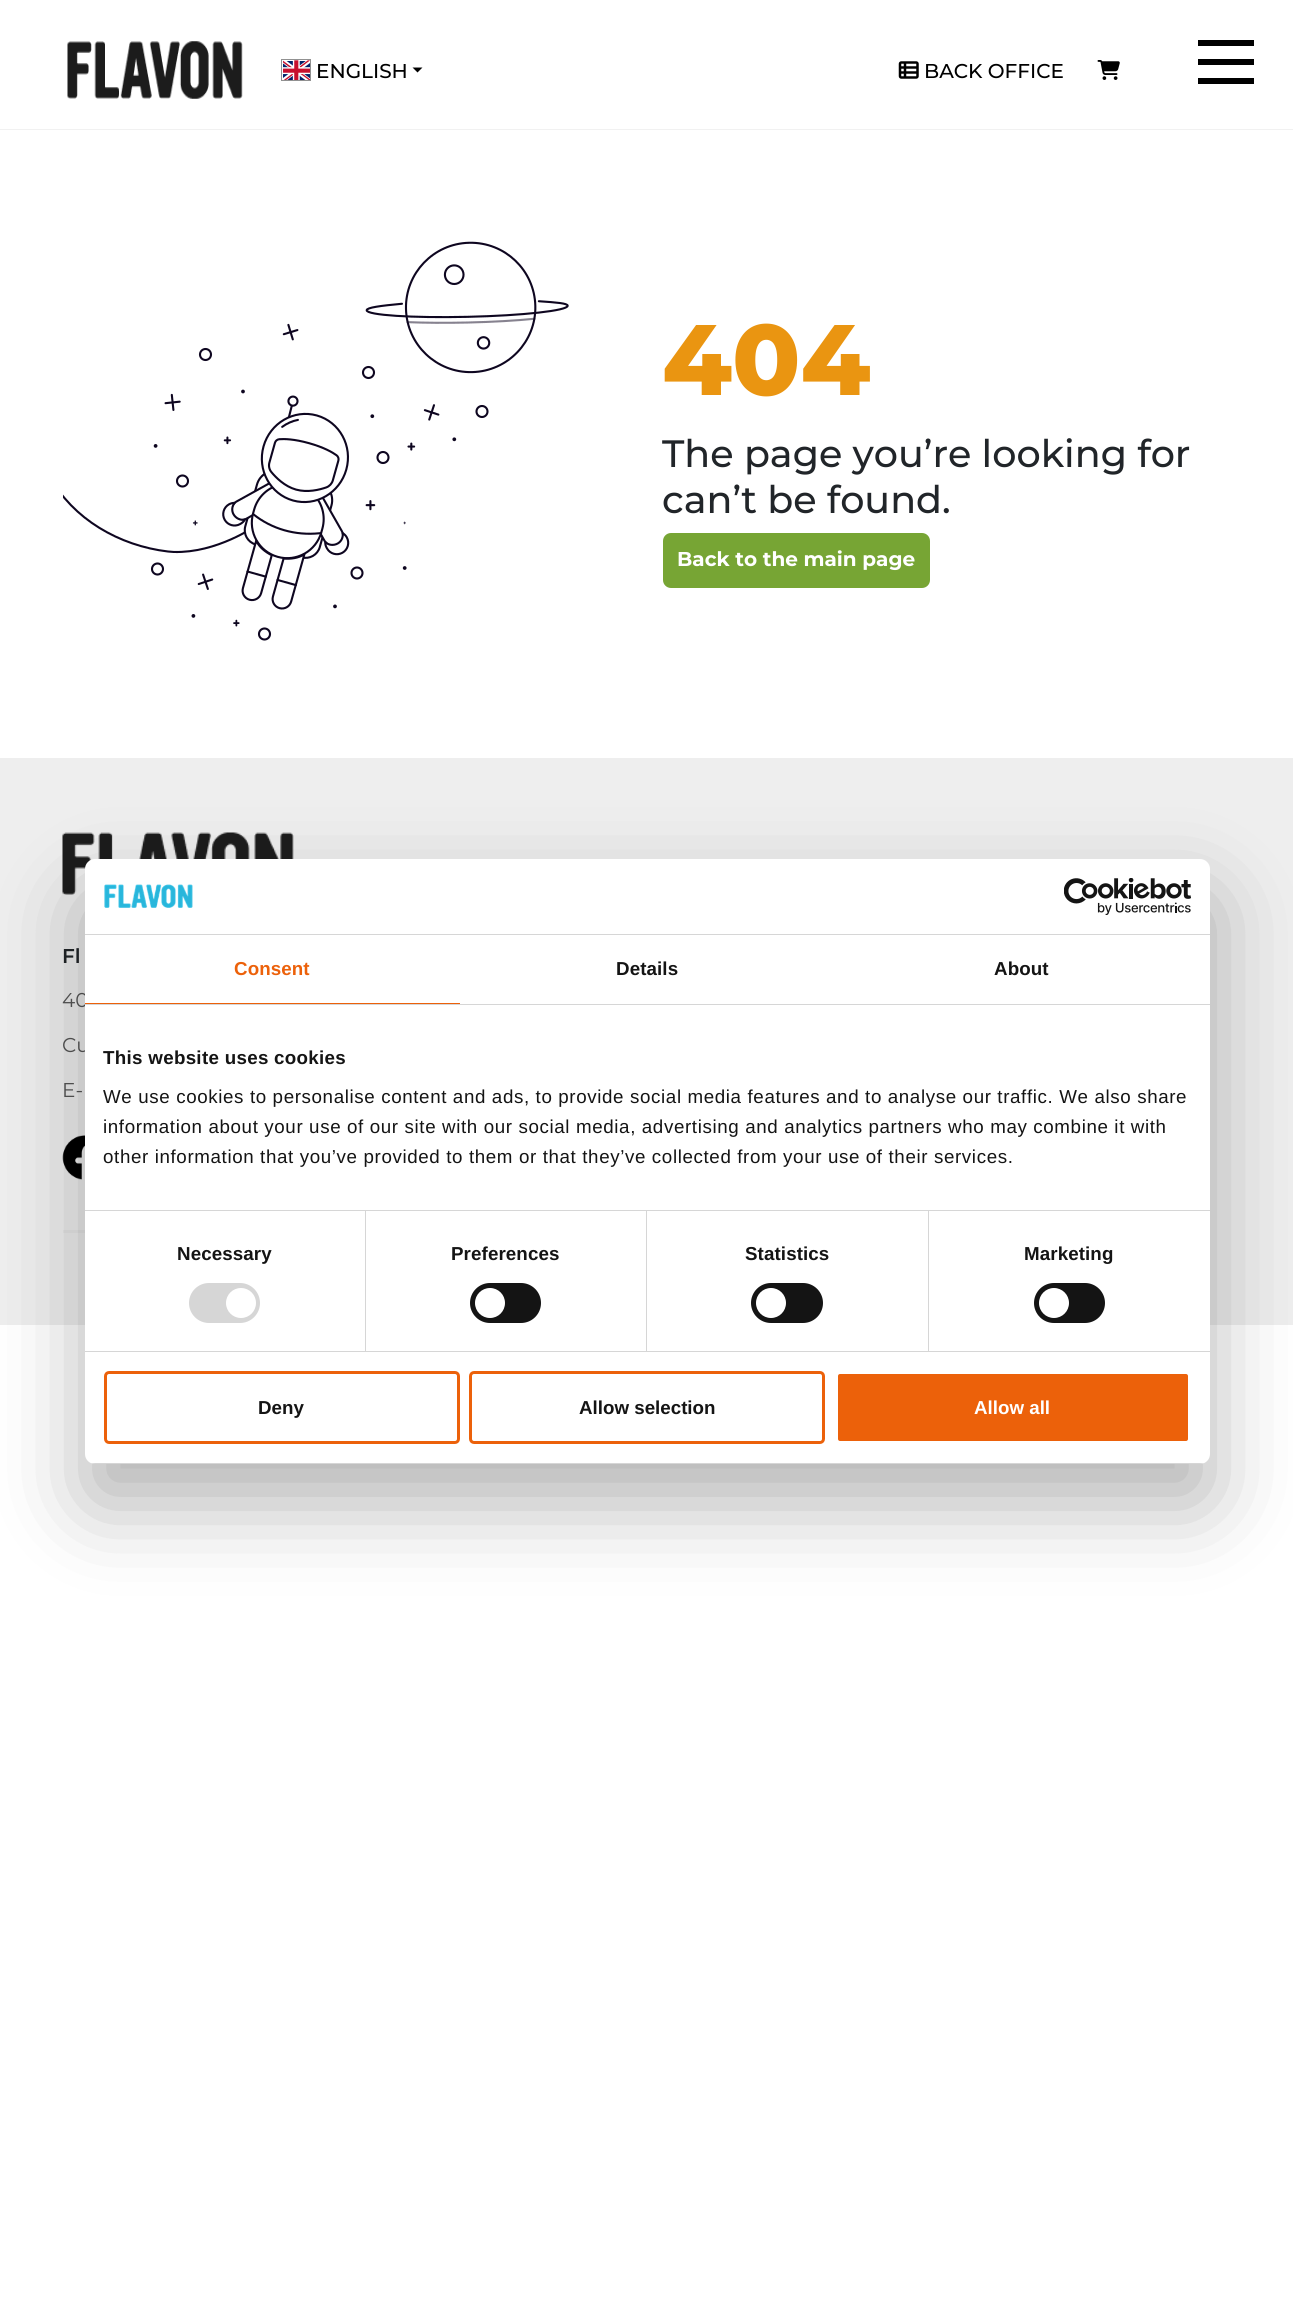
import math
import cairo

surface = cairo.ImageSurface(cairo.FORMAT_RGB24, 1293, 2322)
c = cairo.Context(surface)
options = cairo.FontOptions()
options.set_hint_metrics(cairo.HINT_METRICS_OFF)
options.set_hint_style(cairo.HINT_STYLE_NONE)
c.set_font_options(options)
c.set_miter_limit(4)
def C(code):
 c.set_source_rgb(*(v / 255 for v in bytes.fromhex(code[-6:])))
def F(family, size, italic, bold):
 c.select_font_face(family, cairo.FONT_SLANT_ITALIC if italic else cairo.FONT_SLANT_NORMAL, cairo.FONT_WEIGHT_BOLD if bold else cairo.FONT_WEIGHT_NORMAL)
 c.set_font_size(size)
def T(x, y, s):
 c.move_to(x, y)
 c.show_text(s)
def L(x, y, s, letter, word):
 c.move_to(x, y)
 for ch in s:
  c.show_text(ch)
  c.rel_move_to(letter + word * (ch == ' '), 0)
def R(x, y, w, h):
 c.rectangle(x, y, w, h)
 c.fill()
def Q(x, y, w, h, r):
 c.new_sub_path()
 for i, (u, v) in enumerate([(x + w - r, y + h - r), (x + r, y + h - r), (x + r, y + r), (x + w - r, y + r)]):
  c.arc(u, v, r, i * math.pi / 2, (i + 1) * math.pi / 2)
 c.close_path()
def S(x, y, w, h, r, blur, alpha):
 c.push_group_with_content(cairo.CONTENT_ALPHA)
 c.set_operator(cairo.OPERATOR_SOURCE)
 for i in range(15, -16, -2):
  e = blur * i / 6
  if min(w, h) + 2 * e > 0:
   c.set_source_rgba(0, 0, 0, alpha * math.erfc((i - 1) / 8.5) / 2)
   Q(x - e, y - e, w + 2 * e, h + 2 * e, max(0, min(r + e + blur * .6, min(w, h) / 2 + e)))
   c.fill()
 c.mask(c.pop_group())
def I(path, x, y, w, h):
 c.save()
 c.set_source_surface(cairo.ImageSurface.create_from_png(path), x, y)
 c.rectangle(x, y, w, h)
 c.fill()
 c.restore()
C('ffffff')
c.paint()
C('f1f1f1')
R(0,129,1293,1)
I('1.png',67,41,176,58)
c.rectangle(281.5,59.5,29,21)
C('919191')
c.set_line_width(1)
c.stroke()
I('2.png',283,60,27,20)
F('Montserrat Medium',20,0,0)
C('000000')
T(316,78,'ENGLISH')
c.new_path()
c.move_to(412.5,67.5)
c.line_to(422.5,67.5)
c.line_to(417.5,72.5)
c.close_path()
c.fill()
I('3.png',898,61,21,18)
T(924,78,'BACK OFFICE')
I('4.png',1097,60,23,20)
R(1198,40,56,6)
R(1198,59,56,6)
R(1198,78,56,6)
I('5.png',63,241,506,400)
F('Montserrat ExtraBold',100,0,0)
C('ea9511')
T(662,395,'404')
F('Montserrat Medium',38.1,0,0)
C('212529')
T(662,467,'The page you’re looking for')
T(662,513,'can’t be found.')
C('77a534')
Q(663,533,267,55,8)
c.fill()
F('Montserrat',20,0,1)
C('ffffff')
T(677,566,'Back to the main page')
C('eeeeee')
R(0,758,1293,567)
I('6.png',62,832,232,63)
F('Montserrat SemiBold',20,0,0)
C('212529')
T(62,963,'Fl')
F('Montserrat',20,0,0)
C('575757')
T(62,1007,'40')
T(62,1052,'Cu')
T(62,1097,'E-')
I('7.png',62,1135,23,45)
C('e7e7e7')
R(63,1230,22,3)
C('000000')
S(85,899,1125,605,10,42.5,.3)
C('ffffff')
Q(85,859,1125,605,10)
c.fill()
C('d6d6d6')
R(85,934,1125,1)
I('8.png',104,884,89,24)
I('9.png',1064,878,127,37)
R(85,1004,1125,1)
C('ec610a')
R(85,1003,375,1)
F('Liberation Sans',18.75,0,1)
L(234,975,'Consent',.1,0)
C('141414')
L(616,975,'Details',.1,0)
L(994,975,'About',.1,0)
C('d6d6d6')
R(85,1210,1125,1)
C('141414')
L(103,1064,'This website uses cookies',.3,0)
F('Liberation Sans',18.75,0,0)
L(103,1103,'We use cookies to personalise content and ads, to provide social media features and to analyse our traffic. We also share',.62,0)
L(103,1133,'information about your use of our site with our social media, advertising and analytics partners who may combine it with',.62,0)
L(103,1163,'other information that you’ve provided to them or that they’ve collected from your use of their services.',.62,0)
C('d6d6d6')
R(85,1351,1125,1)
R(365,1211,1,140)
F('Liberation Sans',18.75,0,1)
C('141414')
L(177,1260,'Necessary',.1,0)
C('d6d6d6')
Q(189,1283,71,40,20)
c.fill()
C('ffffff')
c.arc(241,1303,15,0,2 * math.pi)
c.fill()
C('d6d6d6')
R(646,1211,1,140)
C('141414')
L(451,1260,'Preferences',.1,0)
Q(470,1283,71,40,20)
c.fill()
C('ffffff')
c.arc(490,1303,15,0,2 * math.pi)
c.fill()
C('d6d6d6')
R(928,1211,1,140)
C('141414')
L(745,1260,'Statistics',.1,0)
Q(751,1283,72,40,20)
c.fill()
C('ffffff')
c.arc(771,1303,15,0,2 * math.pi)
c.fill()
C('141414')
L(1024,1260,'Marketing',.1,0)
Q(1034,1283,71,40,20)
c.fill()
C('ffffff')
c.arc(1054,1303,15,0,2 * math.pi)
c.fill()
c.save()
Q(85,859,1125,605,10)
c.clip()
C('d6d6d6')
R(85,1463,1125,1)
c.restore()
Q(105.5,1372.5,353,70,3.5)
C('ec610a')
c.set_line_width(3)
c.stroke()
C('141414')
T(258,1414,'Deny')
Q(470.5,1372.5,353,70,3.5)
C('ec610a')
c.stroke()
C('141414')
T(579,1414,'Allow selection')
C('ec610a')
Q(836.5,1372.5,353,70,3.5)
c.fill_preserve()
C('ffffff')
c.stroke()
T(974,1414,'Allow all')
surface.write_to_png('o.png')
